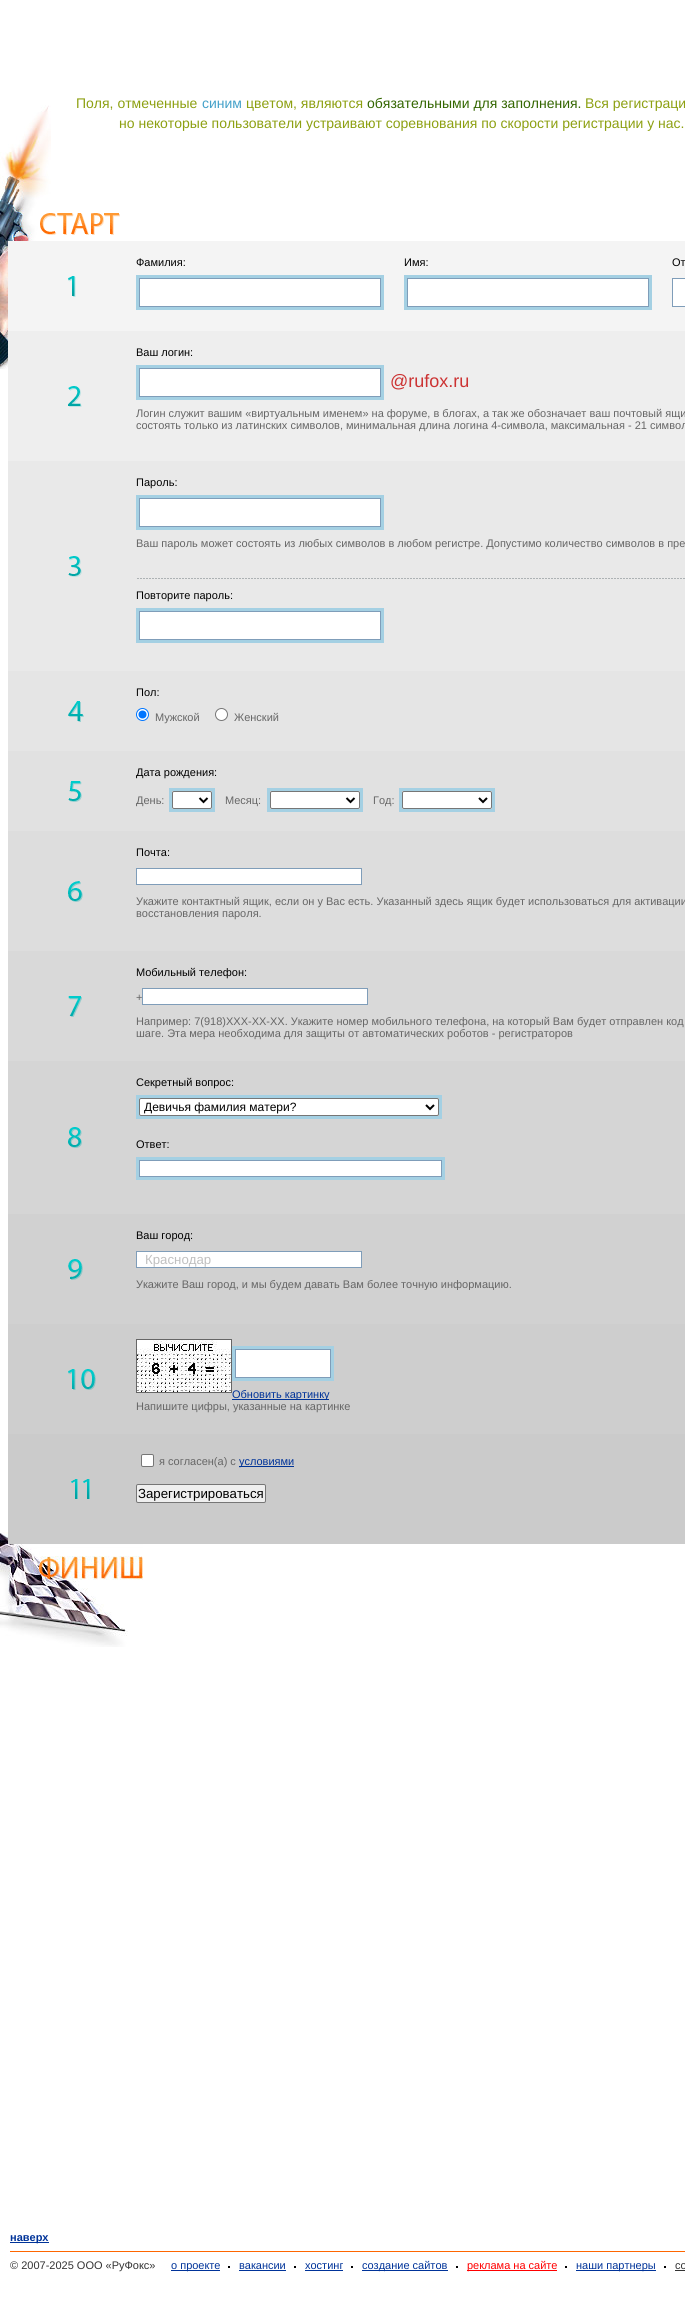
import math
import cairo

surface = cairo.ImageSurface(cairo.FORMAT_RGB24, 685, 2301)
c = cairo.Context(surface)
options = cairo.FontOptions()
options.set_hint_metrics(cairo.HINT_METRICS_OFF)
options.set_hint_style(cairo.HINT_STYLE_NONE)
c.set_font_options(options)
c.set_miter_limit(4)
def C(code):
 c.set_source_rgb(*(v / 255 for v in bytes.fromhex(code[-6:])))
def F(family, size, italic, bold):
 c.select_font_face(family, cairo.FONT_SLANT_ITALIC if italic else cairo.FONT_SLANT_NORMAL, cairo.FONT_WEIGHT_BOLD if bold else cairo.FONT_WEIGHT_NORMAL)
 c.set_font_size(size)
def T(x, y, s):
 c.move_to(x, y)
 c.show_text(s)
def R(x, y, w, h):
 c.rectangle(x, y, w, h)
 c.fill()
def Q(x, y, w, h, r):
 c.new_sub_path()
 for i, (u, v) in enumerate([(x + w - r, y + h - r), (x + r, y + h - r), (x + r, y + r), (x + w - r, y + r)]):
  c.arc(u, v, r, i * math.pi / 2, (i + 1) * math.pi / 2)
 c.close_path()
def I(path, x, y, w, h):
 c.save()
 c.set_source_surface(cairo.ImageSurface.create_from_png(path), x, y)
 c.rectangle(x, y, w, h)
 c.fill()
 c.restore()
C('ffffff')
c.paint()
I('1.png',0,105,51,264)
F('Liberation Sans',14,0,0)
C('8da011')
T(76,108,'Поля, отмеченные')
C('44a1c9')
T(202,108,'синим')
C('8da011')
T(246,108,'цветом, являются')
C('336600')
T(367,108,'обязательными для заполнения.')
C('8da011')
T(585,108,'Вся регистраци')
T(119,128,'но некоторые пользователи устраивают соревнования по скорости регистрации у нас.')
I('2.png',40,213,80,22)
C('f4f4f4')
R(8,241,677,90)
I('3.png',68,276,8,21)
F('Liberation Sans',11,0,0)
C('000000')
T(136,266,'Фамилия:')
c.rectangle(137.5,276.5,245,32)
C('a4d0e3')
c.set_line_width(3)
c.stroke()
C('ffffff')
c.rectangle(139.5,278.5,241,28)
c.fill_preserve()
C('7f9db9')
c.set_line_width(1)
c.stroke()
C('000000')
T(404,266,'Имя:')
c.rectangle(405.5,276.5,245,32)
C('a4d0e3')
c.set_line_width(3)
c.stroke()
C('ffffff')
c.rectangle(407.5,278.5,241,28)
c.fill_preserve()
C('7f9db9')
c.set_line_width(1)
c.stroke()
C('000000')
T(672,266,'От')
C('ffffff')
c.rectangle(672.5,278.5,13,28)
c.fill_preserve()
C('7f9db9')
c.stroke()
C('eeeeee')
R(8,331,677,130)
I('4.png',68,386,14,21)
C('000000')
T(136,356,'Ваш логин:')
c.rectangle(137.5,366.5,245,32)
C('a4d0e3')
c.set_line_width(3)
c.stroke()
C('ffffff')
c.rectangle(139.5,368.5,241,28)
c.fill_preserve()
C('7f9db9')
c.set_line_width(1)
c.stroke()
F('Liberation Sans',18,0,0)
C('cc3333')
T(390,387,'@rufox.ru')
F('Liberation Sans',11,0,0)
C('666666')
T(136,417,'Логин служит вашим «виртуальным именем» на форуме, в блогах, а так же обозначает ваш почтовый ящи')
T(136,429,'состоять только из латинских символов, минимальная длина логина 4-символа, максимальная - 21 символ')
C('e9e9e9')
R(8,461,677,210)
I('5.png',68,556,14,21)
C('000000')
T(136,486,'Пароль:')
c.rectangle(137.5,496.5,245,32)
C('a4d0e3')
c.set_line_width(3)
c.stroke()
C('ffffff')
c.rectangle(139.5,498.5,241,28)
c.fill_preserve()
C('7f9db9')
c.set_line_width(1)
c.stroke()
C('666666')
T(136,547,'Ваш пароль может состоять из любых символов в любом регистре. Допустимо количество символов в пре')
I('6.png',137,578,548,1)
C('000000')
T(136,599,'Повторите пароль:')
c.rectangle(137.5,609.5,245,32)
C('a4d0e3')
c.set_line_width(3)
c.stroke()
C('ffffff')
c.rectangle(139.5,611.5,241,28)
c.fill_preserve()
C('7f9db9')
c.set_line_width(1)
c.stroke()
C('e5e5e5')
R(8,671,677,80)
I('7.png',68,701,16,21)
C('000000')
T(136,696,'Пол:')
C('ffffff')
c.new_path()
c.arc(142.5,714.5,6,0,2 * math.pi)
c.fill_preserve()
C('0075ff')
c.stroke()
c.arc(142.5,714.5,4,0,2 * math.pi)
c.fill()
C('666666')
T(155,721,'Мужской')
C('ffffff')
c.new_path()
c.arc(221.5,714.5,6,0,2 * math.pi)
c.fill_preserve()
C('767676')
c.stroke()
C('666666')
T(234,721,'Женский')
C('e1e1e1')
R(8,751,677,80)
I('8.png',68,781,14,21)
C('000000')
T(136,776,'Дата рождения:')
C('666666')
T(136,804,'День:')
c.rectangle(170.5,789.5,43,21)
C('a4d0e3')
c.set_line_width(3)
c.stroke()
C('ffffff')
Q(172.5,791.5,39,17,1.5)
c.fill_preserve()
C('767676')
c.set_line_width(1)
c.stroke()
c.new_path()
c.move_to(199.5,798)
c.line_to(203.5,802)
c.line_to(207.5,798)
C('000000')
c.set_line_width(2)
c.stroke()
C('666666')
T(225,804,'Месяц:')
c.rectangle(268.5,789.5,93,21)
C('a4d0e3')
c.set_line_width(3)
c.stroke()
C('ffffff')
Q(270.5,791.5,89,17,1.5)
c.fill_preserve()
C('767676')
c.set_line_width(1)
c.stroke()
c.new_path()
c.move_to(346.5,798)
c.line_to(350.5,802)
c.line_to(354.5,798)
C('000000')
c.set_line_width(2)
c.stroke()
C('666666')
T(373,804,'Год:')
c.rectangle(400.5,789.5,93,21)
C('a4d0e3')
c.set_line_width(3)
c.stroke()
C('ffffff')
Q(402.5,791.5,89,17,1.5)
c.fill_preserve()
C('767676')
c.set_line_width(1)
c.stroke()
c.new_path()
c.move_to(479,798)
c.line_to(483,802)
c.line_to(487,798)
C('000000')
c.set_line_width(2)
c.stroke()
C('dddddd')
R(8,831,677,120)
I('9.png',68,881,15,21)
C('000000')
T(136,856,'Почта:')
C('ffffff')
c.rectangle(136.5,868.5,225,16)
c.fill_preserve()
C('7f9db9')
c.set_line_width(1)
c.stroke()
C('666666')
T(136,905,'Укажите контактный ящик, если он у Вас есть. Указанный здесь ящик будет использоваться для активации')
T(136,917,'восстановления пароля.')
C('d9d9d9')
R(8,951,677,110)
I('10.png',68,996,14,21)
C('000000')
T(136,976,'Мобильный телефон:')
C('666666')
T(136,1001,'+')
C('ffffff')
c.rectangle(142.5,988.5,225,16)
c.fill_preserve()
C('7f9db9')
c.stroke()
C('666666')
T(136,1025,'Например: 7(918)XXX-XX-XX. Укажите номер мобильного телефона, на который Вам будет отправлен код')
T(136,1037,'шаге. Эта мера необходима для защиты от автоматических роботов - регистраторов')
C('d5d5d5')
R(8,1061,677,153)
I('11.png',68,1127,14,21)
C('000000')
T(136,1086,'Секретный вопрос:')
c.rectangle(137.5,1096.5,303,21)
C('a4d0e3')
c.set_line_width(3)
c.stroke()
C('ffffff')
Q(139.5,1098.5,299,17,1.5)
c.fill_preserve()
C('767676')
c.set_line_width(1)
c.stroke()
c.new_path()
c.move_to(426,1105)
c.line_to(430,1109)
c.line_to(434,1105)
C('000000')
c.set_line_width(2)
c.stroke()
F('Liberation Sans',12,0,0)
T(144,1111,'Девичья фамилия матери?')
F('Liberation Sans',11,0,0)
T(136,1148,'Ответ:')
c.rectangle(137.5,1158.5,306,20)
C('a4d0e3')
c.set_line_width(3)
c.stroke()
C('ffffff')
c.rectangle(139.5,1160.5,302,16)
c.fill_preserve()
C('7f9db9')
c.set_line_width(1)
c.stroke()
C('d1d1d1')
R(8,1214,677,110)
I('12.png',68,1259,15,21)
C('000000')
T(136,1239,'Ваш город:')
C('ffffff')
c.rectangle(136.5,1251.5,225,16)
c.fill_preserve()
C('7f9db9')
c.stroke()
F('Liberation Sans',13.25,0,0)
C('c0c0c0')
T(145,1264,'Краснодар')
c.save()
c.rectangle(136,1229,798,61)
c.clip()
F('Liberation Sans',11,0,0)
C('666666')
T(136,1288,'Укажите Ваш город, и мы будем давать Вам более точную информацию.')
c.restore()
C('cecece')
R(8,1324,677,110)
I('13.png',68,1369,28,21)
c.rectangle(136.5,1339.5,95,53)
C('666666')
c.stroke()
I('14.png',137,1340,94,52)
c.rectangle(233.5,1347.5,99,32)
C('a4d0e3')
c.set_line_width(3)
c.stroke()
C('ffffff')
c.rectangle(235.5,1349.5,95,28)
c.fill_preserve()
C('7f9db9')
c.set_line_width(1)
c.stroke()
C('003396')
R(232,1399,97,1)
c.save()
c.rectangle(136,1339,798,61)
c.clip()
F('Liberation Sans',11,0,0)
C('003399')
T(232,1398,'Обновить картинку')
c.restore()
F('Liberation Sans',11,0,0)
C('666666')
T(136,1410,'Напишите цифры, указанные на картинке')
I('16.png',0,1532,143,115)
C('cbcbcb')
R(8,1434,677,110)
I('15.png',71,1479,19,20)
C('ffffff')
Q(141.5,1454.5,12,12,1.5)
c.fill_preserve()
C('767676')
c.stroke()
C('666666')
T(159,1465,'я согласен(а) с')
C('003396')
R(239,1466,55,1)
C('003399')
T(239,1465,'условиями')
C('efefef')
Q(136.5,1484.5,129,18,1.5)
c.fill_preserve()
C('767676')
c.stroke()
F('Liberation Sans',13.25,0,0)
C('000000')
T(138,1498,'Зарегистрироваться')
C('003399')
R(10,2242,39,1)
F('Liberation Sans',11,0,1)
T(10,2241,'наверх')
C('ff6600')
R(10,2251,675,1)
F('Liberation Sans',11,0,0)
C('333333')
T(10,2269,'© 2007-2025 ООО «РуФокс»')
C('003399')
R(171,2270,49,1)
T(171,2269,'о проекте')
T(239,2269,'вакансии')
C('010101')
R(228,2266,2,2)
C('003399')
R(239,2270,47,1)
T(305,2269,'хостинг')
C('010101')
R(294,2266,2,2)
C('003399')
R(305,2270,38,1)
R(362,2270,86,1)
T(362,2269,'создание сайтов')
C('010101')
R(351,2266,2,2)
C('ff0000')
R(467,2270,90,1)
T(467,2269,'реклама на сайте')
C('010101')
R(456,2266,2,2)
C('003399')
R(576,2270,80,1)
T(576,2269,'наши партнеры')
C('010101')
R(565,2266,2,2)
C('333333')
T(675,2269,'со')
C('010101')
R(664,2266,2,2)
C('333333')
R(675,2270,10,1)
surface.write_to_png('o.png')
